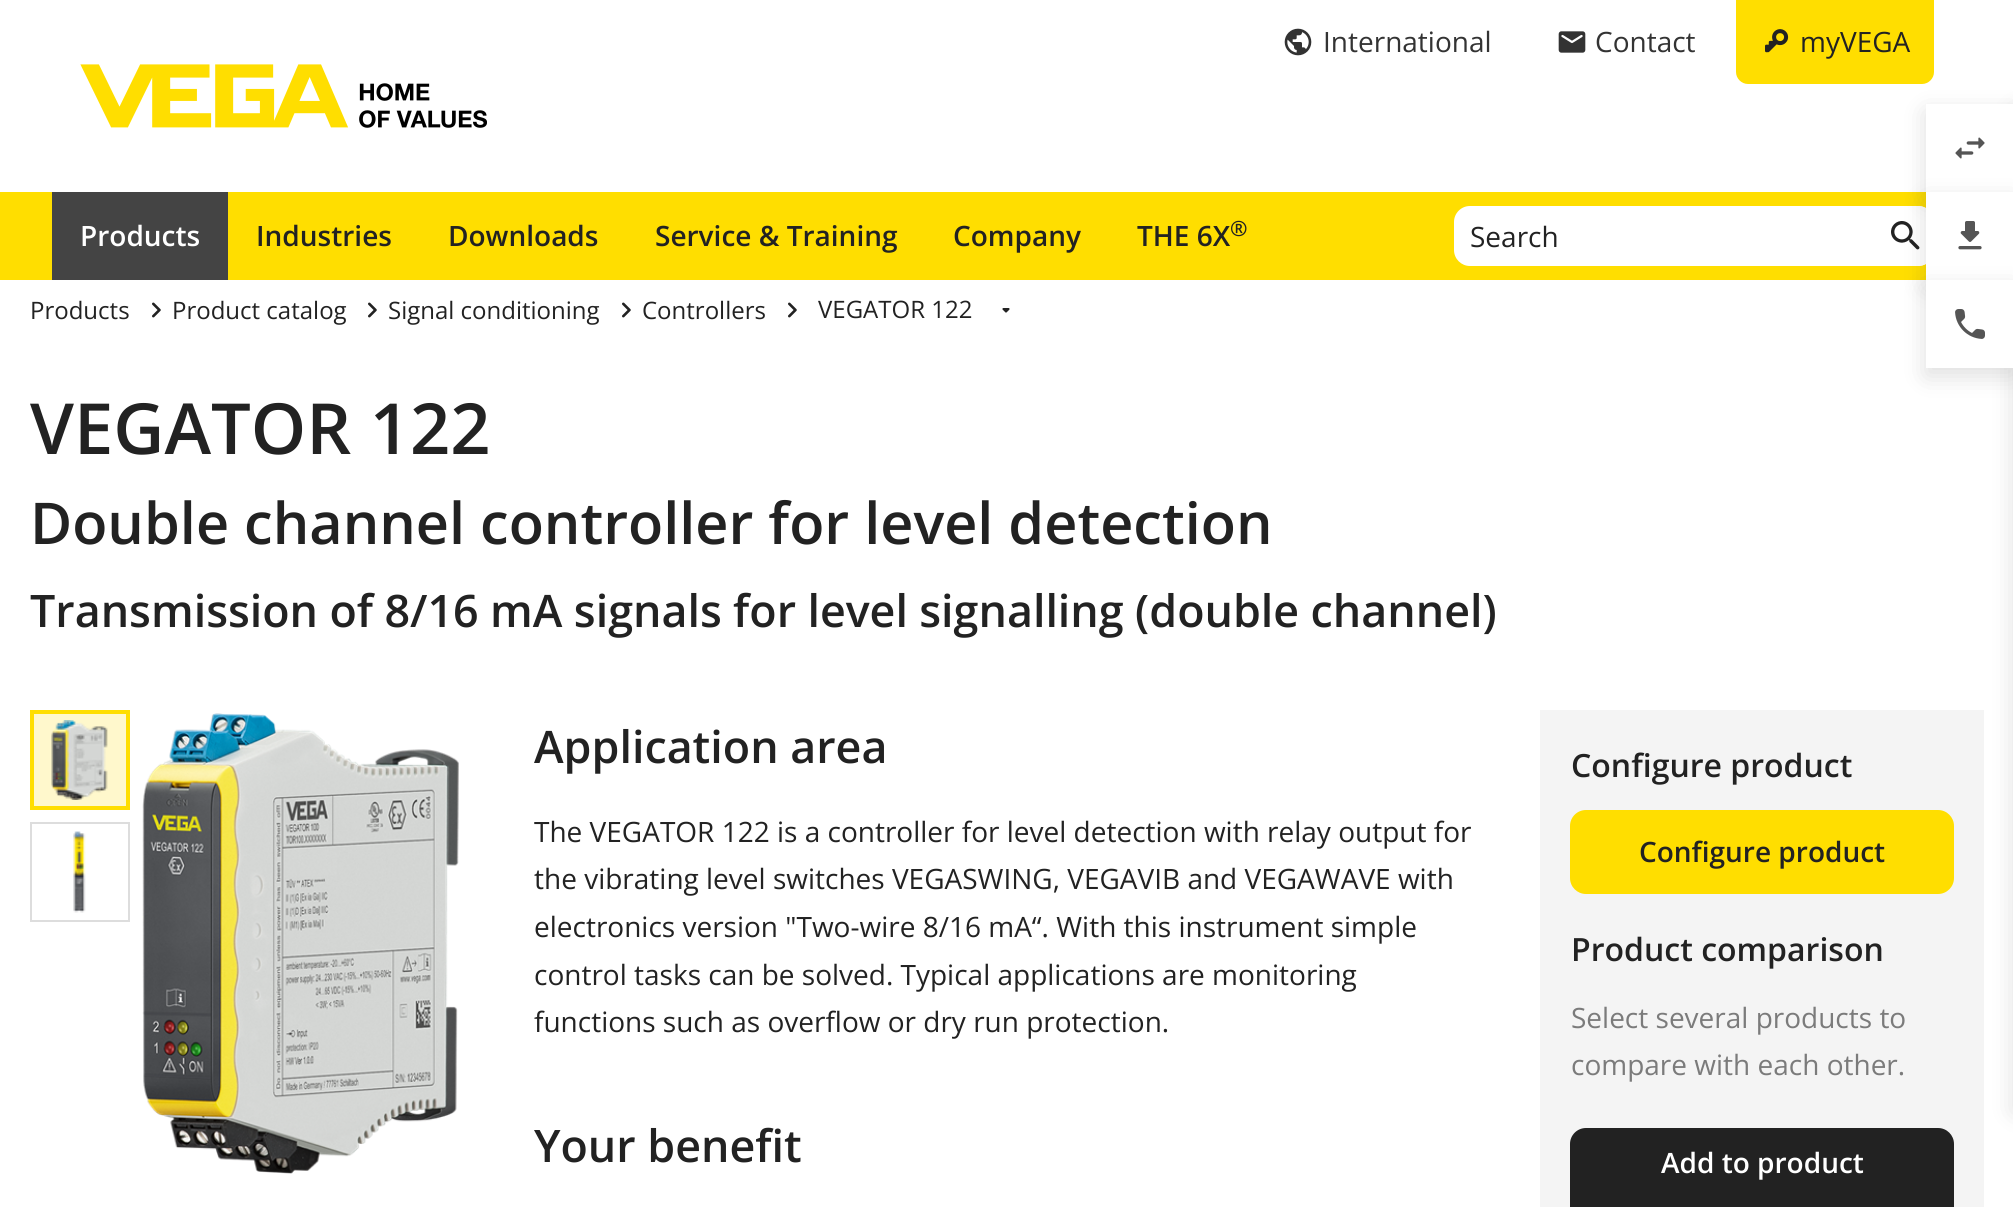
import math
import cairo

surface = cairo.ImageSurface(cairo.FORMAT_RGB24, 2013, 1207)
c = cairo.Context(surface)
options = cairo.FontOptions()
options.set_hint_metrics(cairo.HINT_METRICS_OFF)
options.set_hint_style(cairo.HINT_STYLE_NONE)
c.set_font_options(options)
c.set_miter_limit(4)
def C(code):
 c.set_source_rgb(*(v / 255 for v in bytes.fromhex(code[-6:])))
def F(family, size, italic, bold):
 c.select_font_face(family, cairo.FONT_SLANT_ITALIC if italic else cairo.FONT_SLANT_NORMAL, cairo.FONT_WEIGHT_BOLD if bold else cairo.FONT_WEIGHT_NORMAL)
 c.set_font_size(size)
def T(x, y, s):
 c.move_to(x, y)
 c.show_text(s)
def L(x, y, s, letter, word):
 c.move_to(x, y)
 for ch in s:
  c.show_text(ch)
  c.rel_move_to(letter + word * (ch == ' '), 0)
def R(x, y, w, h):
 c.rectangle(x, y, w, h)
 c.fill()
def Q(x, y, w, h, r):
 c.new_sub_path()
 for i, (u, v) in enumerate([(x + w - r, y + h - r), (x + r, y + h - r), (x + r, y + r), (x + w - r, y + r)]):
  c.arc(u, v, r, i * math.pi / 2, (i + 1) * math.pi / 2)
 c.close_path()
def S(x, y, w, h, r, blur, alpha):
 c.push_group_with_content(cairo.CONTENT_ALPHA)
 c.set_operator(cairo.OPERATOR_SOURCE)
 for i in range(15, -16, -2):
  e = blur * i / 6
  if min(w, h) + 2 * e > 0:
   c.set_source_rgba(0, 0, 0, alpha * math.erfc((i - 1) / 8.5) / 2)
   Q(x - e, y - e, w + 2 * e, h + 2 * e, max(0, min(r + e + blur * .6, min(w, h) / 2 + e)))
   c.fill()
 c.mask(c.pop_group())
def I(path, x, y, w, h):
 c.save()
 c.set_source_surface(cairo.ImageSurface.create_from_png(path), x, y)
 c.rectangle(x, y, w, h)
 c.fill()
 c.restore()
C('ffffff')
c.paint()
I('1.png',1284,28,28,28)
F('Open Sans',28,0,0)
C('333333')
T(1323,52,'International')
I('2.png',1558,31,28,22)
T(1595,52,'Contact')
C('ffde00')
c.new_path()
c.move_to(1736,0)
c.line_to(1934,0)
c.line_to(1934,72)
c.curve_to(1934,78.5,1928.5,84,1922,84)
c.line_to(1748,84)
c.curve_to(1741.5,84,1736,78.5,1736,72)
c.close_path()
c.fill()
I('3.png',1765,29,24,24)
C('222222')
T(1800,52,'myVEGA')
I('4.png',80,64,407,64)
C('ffde00')
R(0,192,1926,88)
C('444444')
R(52,192,176,88)
F('Open Sans SemiBold',28,0,0)
C('ffffff')
T(80,246,'Products')
C('222222')
T(256,246,'Industries')
T(448,246,'Downloads')
T(655,246,'Service & Training')
T(953,246,'Company')
T(1137,246,'THE 6X')
F('Open Sans SemiBold',21,0,0)
T(1230,236,'®')
C('ffffff')
Q(1454,206,480,60,16)
c.fill()
F('Open Sans',28,0,0)
C('222222')
T(1470,247,'Search')
C('ffffff')
c.new_path()
c.move_to(1878,206)
c.line_to(1918,206)
c.curve_to(1927,206,1934,213,1934,222)
c.line_to(1934,250)
c.curve_to(1934,259,1927,266,1918,266)
c.line_to(1878,266)
c.close_path()
c.fill()
I('5.png',1891,221,29,29)
F('Open Sans',24,0,0)
C('222222')
T(30,319,'Products')
I('6.png',152,302,9,16)
T(172,319,'Product catalog')
I('6.png',368,302,9,16)
T(388,319,'Signal conditioning')
I('6.png',622,302,9,16)
T(642,319,'Controllers')
I('6.png',788,302,9,16)
T(818,318,'VEGATOR 122')
I('7.png',1002,308,8,5)
F('Open Sans SemiBold',70.5,0,0)
T(30,454,'VEGATOR 122')
F('Open Sans SemiBold',57.6,0,0)
T(30,544,'Double channel controller for level detection')
F('Open Sans SemiBold',44.8,0,0)
L(30,627,'Transmission of 8/16 mA signals for level signalling (double channel)',0,-.25)
C('fff8cc')
c.rectangle(32,712,96,96)
c.fill_preserve()
C('ffde00')
c.set_line_width(4)
c.stroke()
I('8.png',51,720,57,80)
c.rectangle(31,823,98,98)
C('dddddd')
c.set_line_width(2)
c.stroke()
I('9.png',73,831,13,82)
I('10.png',142,713,317,461)
C('222222')
T(534,763,'Application area')
F('Open Sans',28,0,0)
T(534,842,'The VEGATOR 122 is a controller for level detection with relay output for')
T(534,889,'the vibrating level switches VEGASWING, VEGAVIB and VEGAWAVE with')
T(534,937,'electronics version "Two-wire 8/16 mA“. With this instrument simple')
T(534,985,'control tasks can be solved. Typical applications are monitoring')
T(534,1032,'functions such as overflow or dry run protection.')
F('Open Sans SemiBold',44.8,0,0)
T(534,1162,'Your benefit')
C('f4f4f4')
R(1540,710,444,497)
F('Open Sans SemiBold',32,0,0)
C('222222')
T(1571,777,'Configure product')
C('ffde00')
Q(1570,810,384,84,16)
c.fill()
F('Open Sans SemiBold',28,0,0)
C('222222')
T(1639,862,'Configure product')
F('Open Sans SemiBold',32,0,0)
T(1571,961,'Product comparison')
F('Open Sans',28,0,0)
C('7b7b7b')
T(1571,1028,'Select several products to')
T(1571,1075,'compare with each other.')
C('222222')
Q(1570,1128,384,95,16)
c.fill()
F('Open Sans SemiBold',28,0,0)
C('ffffff')
T(1661,1173,'Add to product')
C('333333')
S(1926,112,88,88,0,12,.16)
S(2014,112,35,1000,0,12,.16)
C('ffffff')
R(1926,104,87,88)
I('11.png',1955,137,30,22)
C('333333')
S(1926,200,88,88,0,12,.16)
C('ffffff')
R(1926,192,87,88)
I('12.png',1958,221,24,29)
C('333333')
S(1926,288,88,88,0,12,.16)
C('ffffff')
R(1926,280,87,88)
I('13.png',1955,309,30,30)
surface.write_to_png('o.png')
